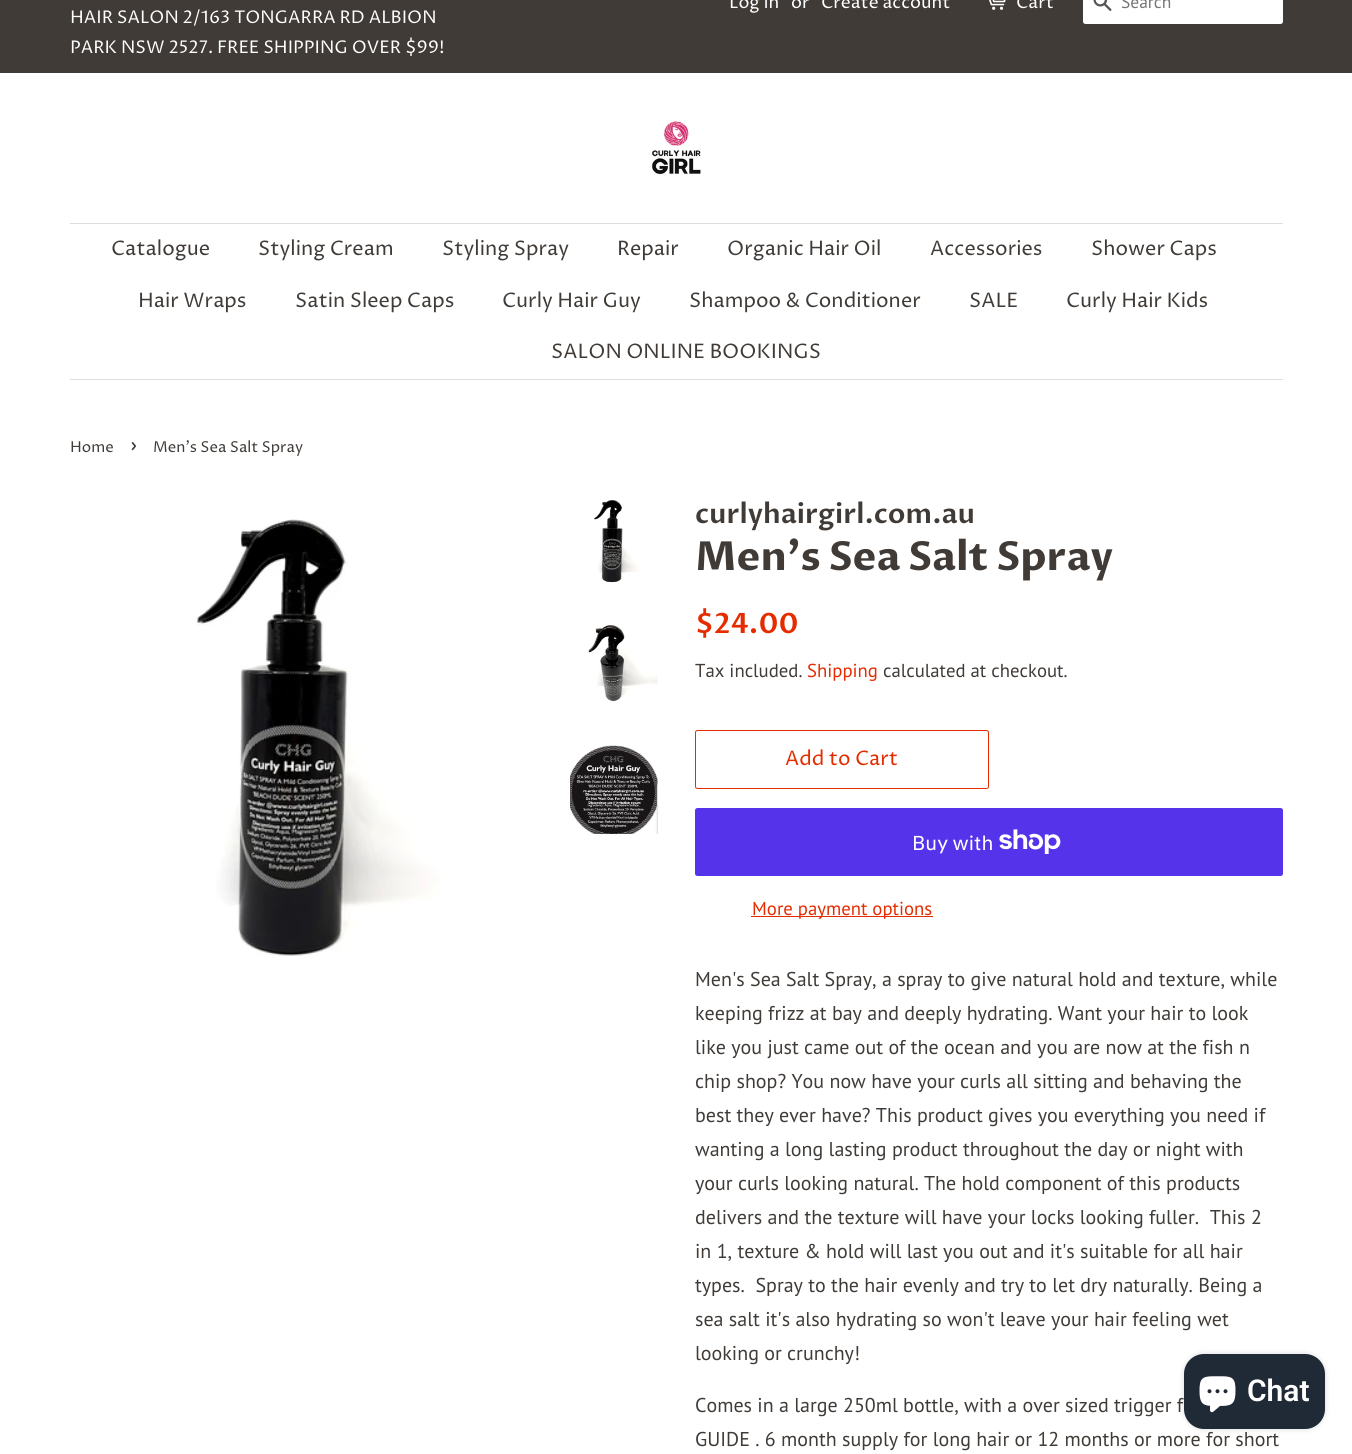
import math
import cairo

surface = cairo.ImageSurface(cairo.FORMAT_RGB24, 1352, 1454)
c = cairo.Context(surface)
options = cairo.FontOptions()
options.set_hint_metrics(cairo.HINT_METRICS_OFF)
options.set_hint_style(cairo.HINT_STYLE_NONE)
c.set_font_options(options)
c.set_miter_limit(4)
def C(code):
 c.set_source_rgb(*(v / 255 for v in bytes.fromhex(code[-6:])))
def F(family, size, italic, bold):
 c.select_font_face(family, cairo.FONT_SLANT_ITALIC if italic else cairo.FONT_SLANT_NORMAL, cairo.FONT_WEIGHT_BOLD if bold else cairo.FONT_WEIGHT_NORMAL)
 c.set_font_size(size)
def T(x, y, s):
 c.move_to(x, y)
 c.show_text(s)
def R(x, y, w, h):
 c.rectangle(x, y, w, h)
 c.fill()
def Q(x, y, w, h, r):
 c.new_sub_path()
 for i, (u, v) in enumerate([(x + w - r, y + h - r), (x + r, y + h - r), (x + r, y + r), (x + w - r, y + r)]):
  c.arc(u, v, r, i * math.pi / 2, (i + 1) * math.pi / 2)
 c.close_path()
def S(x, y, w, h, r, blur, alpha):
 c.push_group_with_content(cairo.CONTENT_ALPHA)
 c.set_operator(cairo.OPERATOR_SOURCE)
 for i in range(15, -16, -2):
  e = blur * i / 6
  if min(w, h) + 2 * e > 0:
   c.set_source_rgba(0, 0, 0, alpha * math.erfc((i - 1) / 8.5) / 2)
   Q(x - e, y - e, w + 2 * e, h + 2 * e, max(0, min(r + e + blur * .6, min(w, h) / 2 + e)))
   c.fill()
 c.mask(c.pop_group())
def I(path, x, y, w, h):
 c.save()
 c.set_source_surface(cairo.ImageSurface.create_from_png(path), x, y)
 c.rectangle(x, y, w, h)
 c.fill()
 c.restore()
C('ffffff')
c.paint()
C('403b37')
R(0,0,1352,73)
F('Proza Libre',17.5,0,0)
C('ffffff')
T(729,8,'Log in')
T(791,8,'or')
T(821,8,'Create account')
I('1.png',989,0,17,10)
T(1016,8,'Cart')
Q(1083,-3,200,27,2.5)
c.fill()
I('2.png',1093,0,19,11)
F('PT Sans',17.5,0,0)
C('757575')
T(1121,8,'Search')
F('Proza Libre',17.5,0,0)
C('ffffff')
T(70,23,'HAIR SALON 2/163 TONGARRA RD ALBION')
T(70,53,'PARK NSW 2527. FREE SHIPPING OVER $99!')
I('3.png',651,120,50,55)
C('dddddd')
R(70,223,1213,1)
R(70,379,1213,1)
F('Proza Libre',20,0,0)
C('403b37')
T(111,255,'Catalogue')
T(258,255,'Styling Cream')
T(442,255,'Styling Spray')
T(617,255,'Repair')
T(727,255,'Organic Hair Oil')
T(930,255,'Accessories')
T(1091,255,'Shower Caps')
T(138,307,'Hair Wraps')
T(295,307,'Satin Sleep Caps')
T(502,307,'Curly Hair Guy')
T(689,307,'Shampoo & Conditioner')
T(969,307,'SALE')
T(1066,307,'Curly Hair Kids')
T(551,358,'SALON ONLINE BOOKINGS')
F('Proza Libre',15,0,0)
T(70,452,'Home')
F('Proza Libre',21,0,0)
T(130,452,'›')
F('Proza Libre',15,0,0)
T(153,452,'Men\'s Sea Salt Spray')
I('4.png',195,519,245,437)
I('5.png',594,500,45,83)
I('6.png',588,625,70,77)
I('7.png',570,745,88,89)
F('Proza Libre SemiBold',27.5,0,0)
T(695,523,'curlyhairgirl.com.au')
F('Proza Libre',40,0,1)
T(695,570,'Men\'s Sea Salt Spray')
F('Proza Libre SemiBold',28,0,0)
C('e42c00')
T(695,633,'$24.00')
F('PT Sans',18.75,0,0)
C('403b37')
T(695,677,'Tax included.')
C('e42c00')
T(807,677,'Shipping')
C('403b37')
T(883,677,'calculated at checkout.')
Q(695.5,730.5,293,58,2)
C('e42c00')
c.set_line_width(1)
c.stroke()
F('Proza Libre',20,0,0)
T(785,765,'Add to Cart')
C('5433eb')
Q(695,808,588,68,2.5)
c.fill()
F('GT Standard',20,0,0)
C('ffffff')
T(912,850,'Buy with')
I('8.png',999,829,62,25)
C('e42c00')
R(751,916,182,1)
F('PT Sans',18.75,0,0)
T(752,915,'More payment options')
F('PT Sans',20,0,0)
C('403b37')
T(695,986,'Men\'s Sea Salt Spray, a spray to give natural hold and texture, while')
T(695,1020,'keeping frizz at bay and deeply hydrating. Want your hair to look')
T(695,1054,'like you just came out of the ocean and you are now at the fish n')
T(695,1088,'chip shop? You now have your curls all sitting and behaving the')
T(695,1122,'best they ever have? This product gives you everything you need if')
T(695,1156,'wanting a long lasting product throughout the day or night with')
T(695,1190,'your curls looking natural. The hold component of this products')
T(695,1224,'delivers and the texture will have your locks looking fuller.  This 2')
T(695,1258,'in 1, texture & hold will last you out and it\'s suitable for all hair')
T(695,1292,'types.  Spray to the hair evenly and try to let dry naturally. Being a')
T(695,1326,'sea salt it\'s also hydrating so won\'t leave your hair feeling wet')
T(695,1360,'looking or crunchy!')
T(695,1412,'Comes in a large 250ml bottle, with a over sized trigger f')
T(695,1446,'GUIDE . 6 month supply for long hair or 12 months or more for short')
C('000000')
S(1184,1354,141,75,20,3,.15)
C('202a36')
Q(1184,1354,141,75,20)
c.fill()
I('9.png',1199,1376,37,37)
F('Roboto SemiBold',30,0,0)
C('ffffff')
T(1247,1401,'Chat')
surface.write_to_png('o.png')
